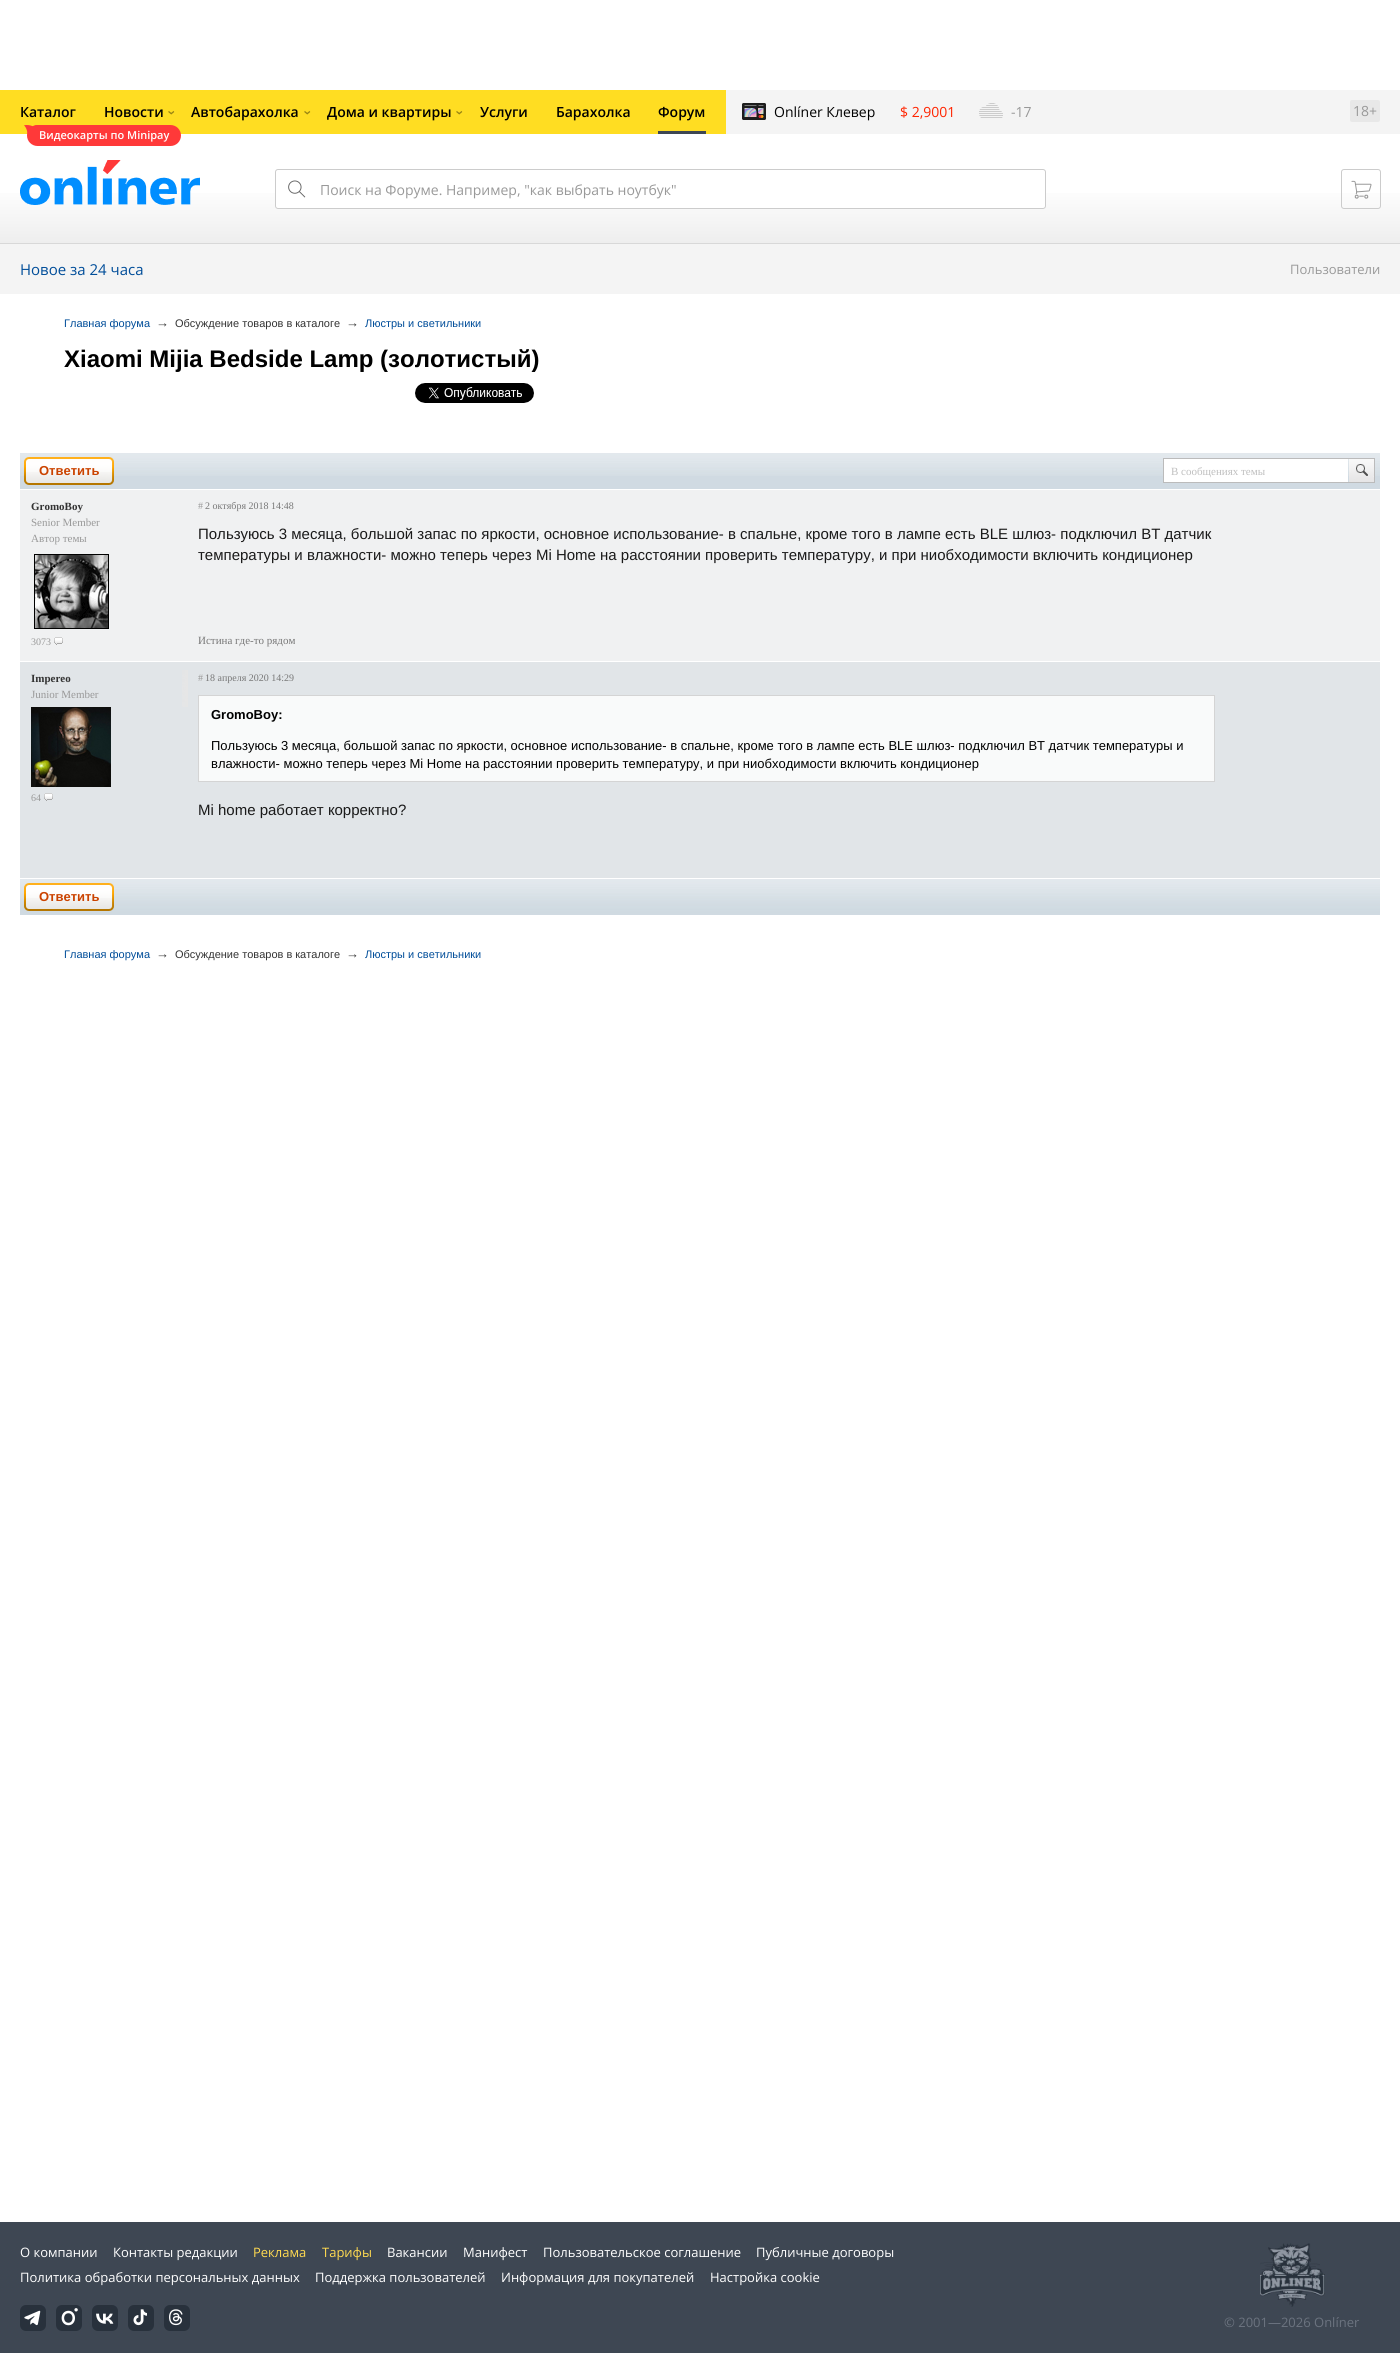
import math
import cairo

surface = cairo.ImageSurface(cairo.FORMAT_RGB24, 1400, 2353)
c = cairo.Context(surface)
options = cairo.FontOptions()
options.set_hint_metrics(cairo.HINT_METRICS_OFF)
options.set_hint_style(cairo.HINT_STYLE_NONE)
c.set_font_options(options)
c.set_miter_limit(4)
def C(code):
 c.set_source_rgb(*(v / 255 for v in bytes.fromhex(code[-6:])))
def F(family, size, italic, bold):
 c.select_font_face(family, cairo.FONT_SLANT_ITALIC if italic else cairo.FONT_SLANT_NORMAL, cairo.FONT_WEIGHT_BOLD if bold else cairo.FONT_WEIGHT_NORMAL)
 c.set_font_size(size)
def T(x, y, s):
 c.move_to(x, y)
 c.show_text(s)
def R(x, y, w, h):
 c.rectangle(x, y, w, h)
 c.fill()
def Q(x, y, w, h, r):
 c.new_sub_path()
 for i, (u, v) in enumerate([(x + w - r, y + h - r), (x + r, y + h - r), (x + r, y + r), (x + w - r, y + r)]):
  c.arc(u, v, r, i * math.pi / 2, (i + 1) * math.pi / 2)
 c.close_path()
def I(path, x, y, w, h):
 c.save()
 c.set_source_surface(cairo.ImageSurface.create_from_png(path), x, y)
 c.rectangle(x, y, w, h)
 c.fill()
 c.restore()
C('ffffff')
c.paint()
gradient = cairo.LinearGradient(700,90,700,280)
gradient.add_color_stop_rgba(0,1,1,1,1)
gradient.add_color_stop_rgba(.5,1,1,1,1)
gradient.add_color_stop_rgba(1,0.89,0.89,0.89,1)
c.set_source(gradient)
R(0,193,1400,50)
C('f4f4f4')
R(726,90,674,44)
C('ffdd22')
R(0,90,726,44)
F('Open Sans SemiBold',14,0,0)
C('000000')
T(20,117,'Каталог')
C('ff3939')
Q(27,125,154,21,10.5)
c.fill()
I('1.png',24,125,13,10)
F('Open Sans SemiBold',11,0,0)
C('ffffff')
T(39,139,'Видеокарты по Minipay')
F('Open Sans SemiBold',14,0,0)
C('000000')
T(191,117,'Автобарахолка')
C('998514')
c.save()
c.translate(311,115)
c.rotate(-90 * math.pi / 180)
T(0,0,'‹')
c.restore()
C('000000')
T(658,117,'Форум')
C('3e4753')
R(658,131,48,3)
C('000000')
T(104,117,'Новости')
C('998514')
c.save()
c.translate(175,115)
c.rotate(-90 * math.pi / 180)
T(0,0,'‹')
c.restore()
C('000000')
T(327,117,'Дома и квартиры')
C('998514')
c.save()
c.translate(463,115)
c.rotate(-90 * math.pi / 180)
T(0,0,'‹')
c.restore()
C('000000')
T(480,117,'Услуги')
T(556,117,'Барахолка')
I('2.png',742,103,24,17)
F('Open Sans',14,0,0)
T(774,117,'Onlíner Клевер')
C('ff2400')
T(900,117,'$ 2,9001')
I('3.png',979,103,24,15)
C('999999')
T(1011,117,'-17')
C('e8e8e8')
Q(1350,100,30,22,2)
c.fill()
C('999999')
T(1353,116,'18+')
I('4.png',20,160,180,45)
C('ffffff')
Q(275,169,771,40,3)
c.fill()
I('5.png',288,180,18,18)
Q(275.5,169.5,770,39,2.5)
C('cccccc')
c.set_line_width(1)
c.stroke()
C('999999')
T(320,195,'Поиск на Форуме. Например, "как выбрать ноутбук"')
Q(1341.5,169.5,39,39,2.5)
C('cccccc')
c.stroke()
I('6.png',1351,180,21,19)
C('d8d8d8')
R(0,243,1400,1)
C('f4f4f4')
R(0,244,1400,50)
F('Open Sans',15,0,0)
C('004d99')
T(20,275,'Новое за 24 часа')
F('Open Sans',13,0,0)
C('999999')
T(1290,274,'Пользователи')
F('Liberation Sans',11,0,0)
C('004d99')
T(64,327,'Главная форума')
F('Liberation Sans',13,0,0)
C('333333')
T(156,327,'→')
F('Liberation Sans',11,0,0)
T(175,327,'Обсуждение товаров в каталоге')
F('Liberation Sans',13,0,0)
T(346,327,'→')
F('Liberation Sans',11,0,0)
C('004d99')
T(365,327,'Люстры и светильники')
F('Liberation Sans',24,0,1)
C('000000')
T(64,367,'Xiaomi Mijia Bedside Lamp (золотистый)')
I('7.png',415,383,119,20)
C('d0dae2')
R(20,476,1360,13)
I('8.png',20,453,1360,23)
I('9.png',24,457,7,28)
I('10.png',31,457,83,28)
F('Liberation Sans',13,0,1)
C('cb4300')
T(39,475,'Ответить')
c.rectangle(1163.5,458.5,211,24)
C('bbbbbb')
c.stroke()
C('ffffff')
R(1164,459,184,23)
F('Liberation Serif',11,0,0)
C('bfbfbf')
T(1171,475,'В сообщениях темы')
I('11.png',1349,459,25,23)
C('f0f1f2')
R(20,490,1360,171)
F('Liberation Serif',11,0,1)
C('333333')
T(31,510,'GromoBoy')
F('Liberation Serif',11,0,0)
C('999999')
T(31,526,'Senior Member')
T(31,542,'Автор темы')
I('12.png',34,554,75,75)
F('Liberation Serif',10,0,0)
T(31,645,'3073')
I('13.png',54,637,9,8)
T(198,509,'#')
C('777777')
T(205,509,'2 октября 2018 14:48')
F('Liberation Sans',15,0,0)
C('1a1a1a')
T(198,539,'Пользуюсь 3 месяца, большой запас по яркости, основное использование- в спальне, кроме того в лампе есть BLE шлюз- подключил BT датчик')
T(198,560,'температуры и влажности- можно теперь через Mi Home на расстоянии проверить температуру, и при ниобходимости включить кондиционер')
F('Liberation Serif',11,0,0)
C('777777')
T(198,644,'Истина где-то рядом')
C('e1e5e8')
R(20,662,1360,216)
F('Liberation Serif',11,0,1)
C('333333')
T(31,682,'Impereo')
I('14.png',182,670,6,37)
F('Liberation Serif',11,0,0)
C('999999')
T(31,698,'Junior Member')
I('15.png',31,707,80,80)
F('Liberation Serif',10,0,0)
T(31,801,'64')
I('16.png',44,793,9,8)
T(198,681,'#')
C('777777')
T(205,681,'18 апреля 2020 14:29')
C('f9fafa')
c.rectangle(198.5,695.5,1016,86)
c.fill_preserve()
C('d4d4d4')
c.stroke()
F('Liberation Sans',13,0,1)
C('000000')
T(211,719,'GromoBoy:')
F('Liberation Sans',13,0,0)
T(211,750,'Пользуюсь 3 месяца, большой запас по яркости, основное использование- в спальне, кроме того в лампе есть BLE шлюз- подключил BT датчик температуры и')
T(211,768,'влажности- можно теперь через Mi Home на расстоянии проверить температуру, и при ниобходимости включить кондиционер')
F('Liberation Sans',15,0,0)
C('1a1a1a')
T(198,815,'Mi home работает корректно?')
I('17.png',20,879,1360,36)
I('18.png',24,883,7,28)
I('19.png',31,883,83,28)
F('Liberation Sans',13,0,1)
C('cb4300')
T(39,901,'Ответить')
F('Liberation Sans',11,0,0)
C('004d99')
T(64,958,'Главная форума')
F('Liberation Sans',13,0,0)
C('333333')
T(156,958,'→')
F('Liberation Sans',11,0,0)
T(175,958,'Обсуждение товаров в каталоге')
F('Liberation Sans',13,0,0)
T(346,958,'→')
F('Liberation Sans',11,0,0)
C('004d99')
T(365,958,'Люстры и светильники')
C('3e4753')
R(0,2222,1400,131)
F('Open Sans',13,0,0)
C('ffffff')
T(20,2257,'О компании')
T(113,2257,'Контакты редакции')
C('ffda50')
T(253,2257,'Реклама')
T(322,2257,'Тарифы')
C('ffffff')
T(387,2257,'Вакансии')
T(463,2257,'Манифест')
T(543,2257,'Пользовательское соглашение')
T(756,2257,'Публичные договоры')
T(20,2282,'Политика обработки персональных данных')
T(315,2282,'Поддержка пользователей')
T(501,2282,'Информация для покупателей')
T(710,2282,'Настройка cookie')
C('28313c')
Q(20,2305,26,26,6)
c.fill()
I('20.png',24,2310,17,16)
Q(56,2305,26,26,6)
c.fill()
c.new_path()
c.move_to(68.5,2312)
c.curve_to(75.5,2312,75.5,2324,68.5,2324)
c.curve_to(61,2324,61,2312,68.5,2312)
c.close_path()
C('ffffff')
c.set_line_width(2.5)
c.stroke()
c.arc(76.1,2309.8,1.7,0,2 * math.pi)
c.fill()
C('28313c')
Q(92,2305,26,26,6)
c.fill()
I('21.png',96,2313,18,11)
Q(128,2305,26,26,6)
c.fill()
I('22.png',133,2309,14,17)
Q(164,2305,26,26,6)
c.fill()
I('23.png',169,2309,14,17)
I('24.png',1260,2243,65,64)
C('6b737f')
T(1224,2327,'© 2001—2026 Onlíner')
surface.write_to_png('o.png')
